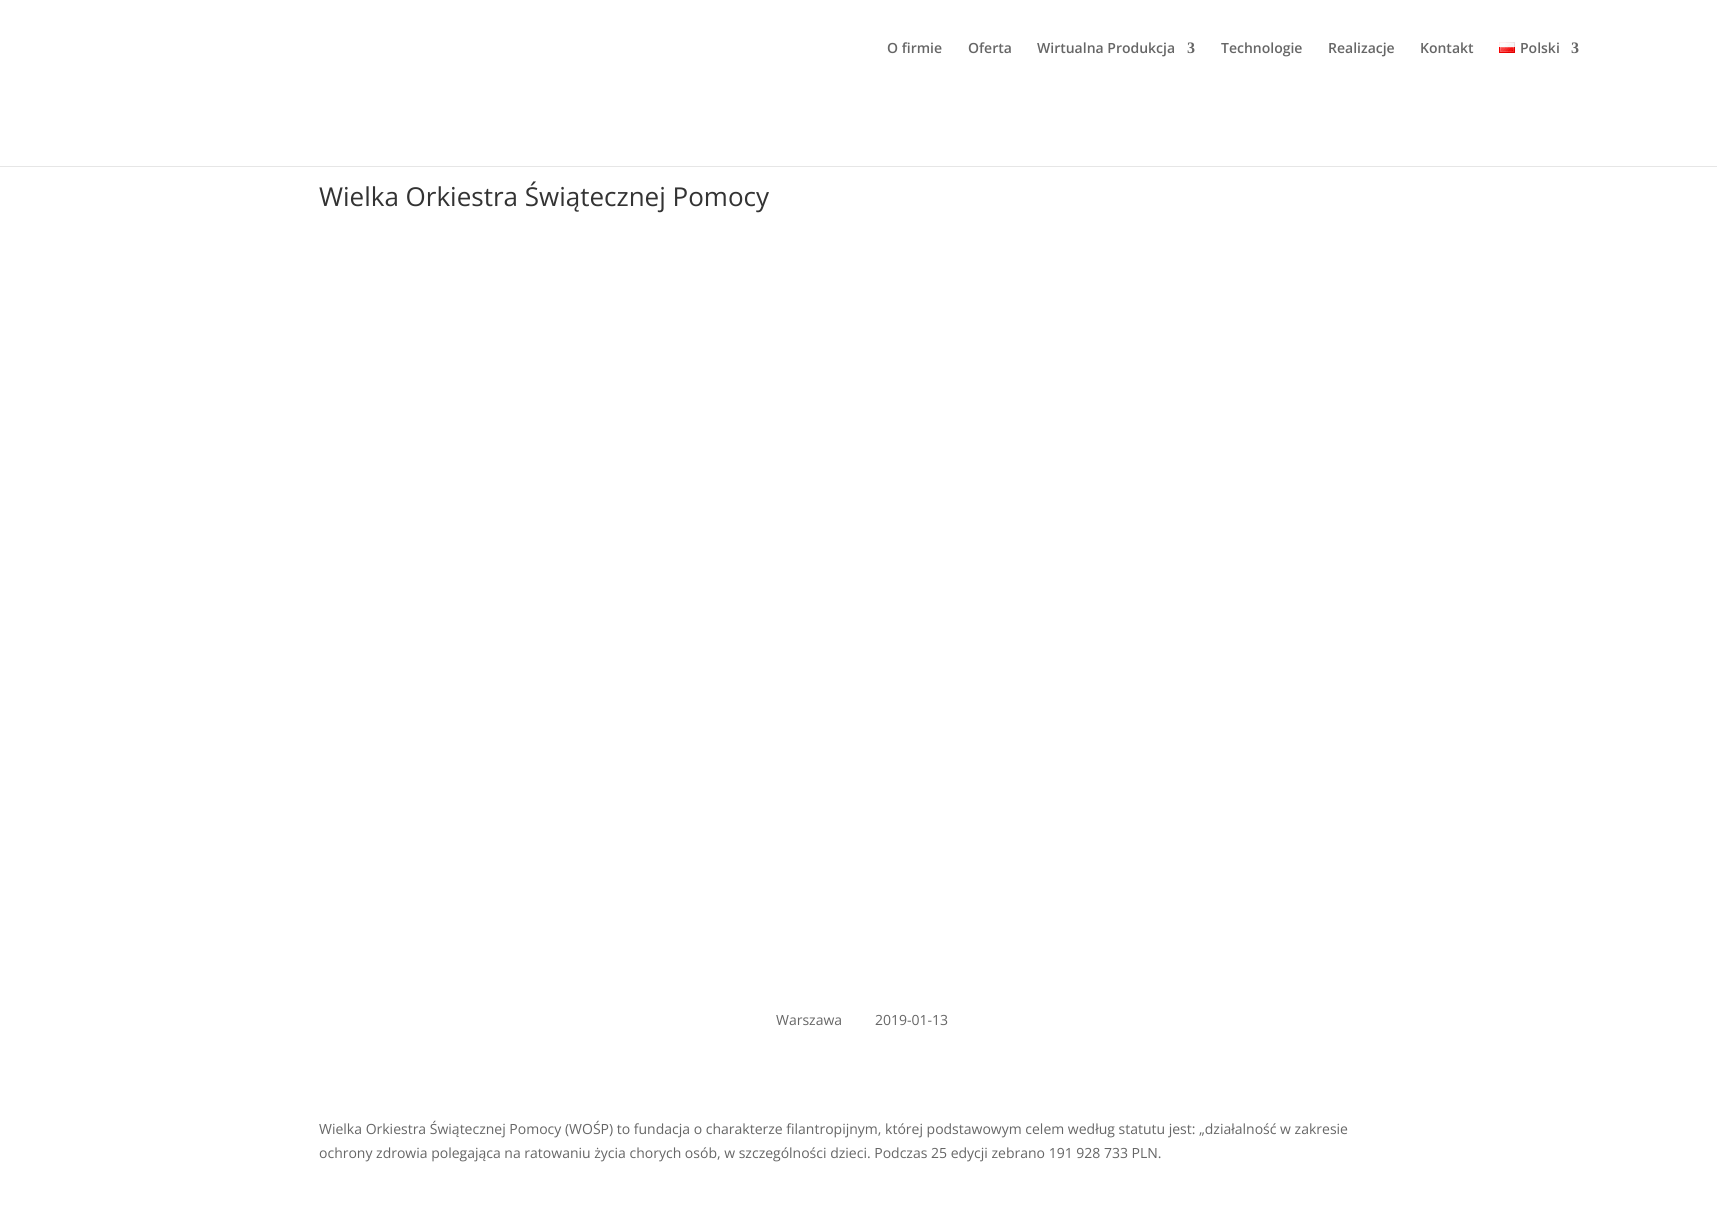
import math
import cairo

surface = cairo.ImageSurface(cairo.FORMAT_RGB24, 1717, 1220)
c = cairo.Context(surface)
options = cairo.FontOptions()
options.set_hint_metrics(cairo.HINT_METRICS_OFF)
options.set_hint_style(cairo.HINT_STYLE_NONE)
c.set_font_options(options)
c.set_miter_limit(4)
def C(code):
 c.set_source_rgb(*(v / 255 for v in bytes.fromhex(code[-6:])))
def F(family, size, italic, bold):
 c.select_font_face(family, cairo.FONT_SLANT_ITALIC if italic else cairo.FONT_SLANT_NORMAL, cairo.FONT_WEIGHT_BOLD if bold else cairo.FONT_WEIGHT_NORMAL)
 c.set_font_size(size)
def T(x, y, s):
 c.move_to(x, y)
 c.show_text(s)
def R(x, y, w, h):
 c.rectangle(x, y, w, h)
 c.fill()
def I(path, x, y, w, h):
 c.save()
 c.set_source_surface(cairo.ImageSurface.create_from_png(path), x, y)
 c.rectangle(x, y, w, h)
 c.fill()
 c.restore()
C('ffffff')
c.paint()
C('e6e6e6')
R(0,166,1717,1)
F('Open Sans SemiBold',14,0,0)
C('666666')
T(887,53,'O firmie')
T(968,53,'Oferta')
T(1037,53,'Wirtualna Produkcja')
F('Liberation Serif',16,0,1)
T(1187,53,'3')
F('Open Sans SemiBold',14,0,0)
T(1221,53,'Technologie')
T(1328,53,'Realizacje')
T(1420,53,'Kontakt')
I('1.png',1499,42,16,11)
T(1520,53,'Polski')
F('Liberation Serif',16,0,1)
T(1571,53,'3')
F('Open Sans',26,0,0)
C('333333')
T(319,206,'Wielka Orkiestra Świątecznej Pomocy')
F('Open Sans',14,0,0)
C('666666')
T(776,1025,'Warszawa')
T(875,1025,'2019-01-13')
T(319,1134,'Wielka Orkiestra Świątecznej Pomocy (WOŚP) to fundacja o charakterze filantropijnym, której podstawowym celem według statutu jest: „działalność w zakresie')
T(319,1158,'ochrony zdrowia polegająca na ratowaniu życia chorych osób, w szczególności dzieci. Podczas 25 edycji zebrano 191 928 733 PLN.')
surface.write_to_png('o.png')
